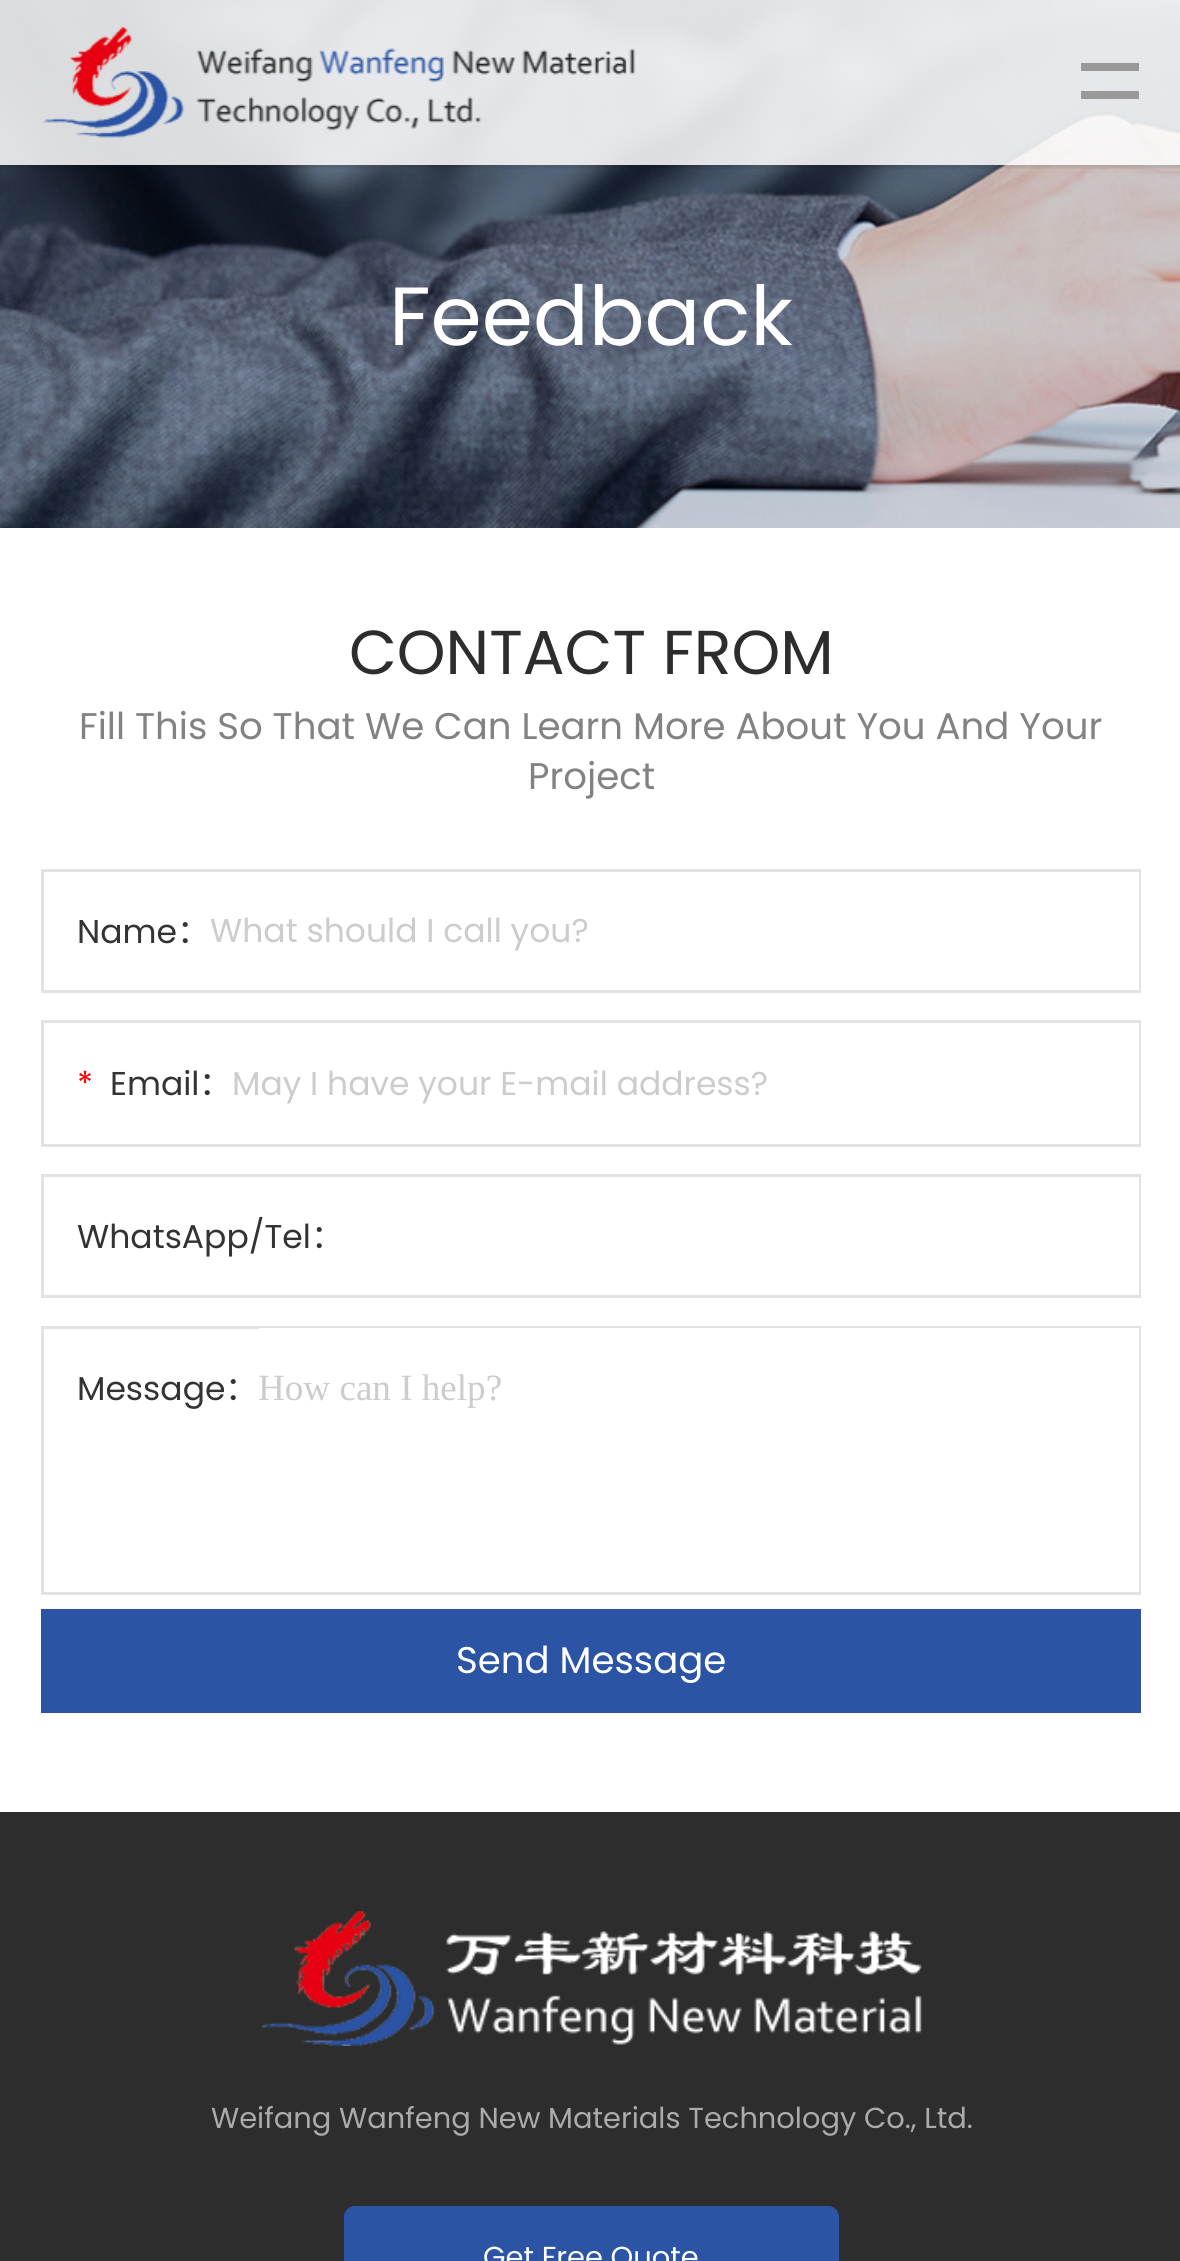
import math
import cairo

surface = cairo.ImageSurface(cairo.FORMAT_RGB24, 1180, 2261)
c = cairo.Context(surface)
options = cairo.FontOptions()
options.set_hint_metrics(cairo.HINT_METRICS_OFF)
options.set_hint_style(cairo.HINT_STYLE_NONE)
c.set_font_options(options)
c.set_miter_limit(4)
def C(code):
 c.set_source_rgb(*(v / 255 for v in bytes.fromhex(code[-6:])))
def F(family, size, italic, bold):
 c.select_font_face(family, cairo.FONT_SLANT_ITALIC if italic else cairo.FONT_SLANT_NORMAL, cairo.FONT_WEIGHT_BOLD if bold else cairo.FONT_WEIGHT_NORMAL)
 c.set_font_size(size)
def T(x, y, s):
 c.move_to(x, y)
 c.show_text(s)
def R(x, y, w, h):
 c.rectangle(x, y, w, h)
 c.fill()
def Q(x, y, w, h, r):
 c.new_sub_path()
 for i, (u, v) in enumerate([(x + w - r, y + h - r), (x + r, y + h - r), (x + r, y + r), (x + w - r, y + r)]):
  c.arc(u, v, r, i * math.pi / 2, (i + 1) * math.pi / 2)
 c.close_path()
def S(x, y, w, h, r, blur, alpha):
 c.push_group_with_content(cairo.CONTENT_ALPHA)
 c.set_operator(cairo.OPERATOR_SOURCE)
 for i in range(15, -16, -2):
  e = blur * i / 6
  if min(w, h) + 2 * e > 0:
   c.set_source_rgba(0, 0, 0, alpha * math.erfc((i - 1) / 8.5) / 2)
   Q(x - e, y - e, w + 2 * e, h + 2 * e, max(0, min(r + e + blur * .6, min(w, h) / 2 + e)))
   c.fill()
 c.mask(c.pop_group())
def I(path, x, y, w, h):
 c.save()
 c.set_source_surface(cairo.ImageSurface.create_from_png(path), x, y)
 c.rectangle(x, y, w, h)
 c.fill()
 c.restore()
C('ffffff')
c.paint()
I('2.png',0,0,1180,528)
c.save()
c.rectangle(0,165,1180,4)
c.clip()
C('000000')
S(0,3,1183,165,0,1.5,.1)
c.restore()
c.set_source_rgba(1,1,1,0.85)
R(0,0,1180,165)
I('1.png',43,27,593,111)
C('999999')
R(1081,63,58,8)
R(1081,91,58,8)
F('Poppins',82.5,0,0)
C('ffffff')
T(389,345,'Feedback')
F('Poppins',62,0,0)
C('2d2d2d')
T(349,674,'CONTACT FROM')
F('Poppins',37.1,0,0)
C('828282')
T(79,739,'Fill This So That We Can Learn More About You And Your')
T(528,789,'Project')
c.rectangle(42.5,870.5,1097,121)
C('e1e3e4')
c.set_line_width(3)
c.stroke()
F('Poppins',33,0,0)
C('333333')
T(77,943,'Name')
F('Noto Sans CJK SC',33,0,0)
T(177,943,'：')
C('ffffff')
R(1138,872,1,118)
F('Poppins',33,0,0)
C('cccccc')
T(210,942,'What should I call you?')
c.rectangle(42.5,1021.5,1097,124)
C('e1e3e4')
c.stroke()
C('ff0000')
T(77,1095,'*')
C('333333')
T(110,1095,'Email')
F('Noto Sans CJK SC',33,0,0)
T(199,1095,'：')
C('ffffff')
R(1138,1023,1,121)
F('Poppins',33,0,0)
C('cccccc')
T(232,1095,'May I have your E-mail address?')
c.rectangle(42.5,1175.5,1097,121)
C('e1e3e4')
c.stroke()
C('333333')
T(77,1248,'WhatsApp/Tel')
F('Noto Sans CJK SC',33,0,0)
T(311,1248,'：')
C('ffffff')
R(1138,1177,1,118)
c.rectangle(42.5,1327.5,1097,266)
C('e1e3e4')
c.stroke()
F('Poppins',33,0,0)
C('333333')
T(77,1400,'Message')
F('Noto Sans CJK SC',33,0,0)
T(225,1400,'：')
C('ffffff')
R(259,1328,880,264)
F('Liberation Serif',37.1,0,0)
C('cccccc')
T(258,1400,'How can I help?')
C('2b54a5')
R(41,1609,1100,104)
F('Poppins',37.1,0,0)
C('ffffff')
T(456,1673,'Send Message')
C('2d2d2d')
R(0,1812,1180,449)
I('3.png',261,1911,661,135)
F('Poppins',28.9,0,0)
C('ababab')
T(211,2128,'Weifang Wanfeng New Materials Technology Co., Ltd.')
C('2b54a5')
Q(344,2206,495,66,11)
c.fill()
C('ffffff')
T(483,2267,'Get Free Quote')
surface.write_to_png('o.png')
